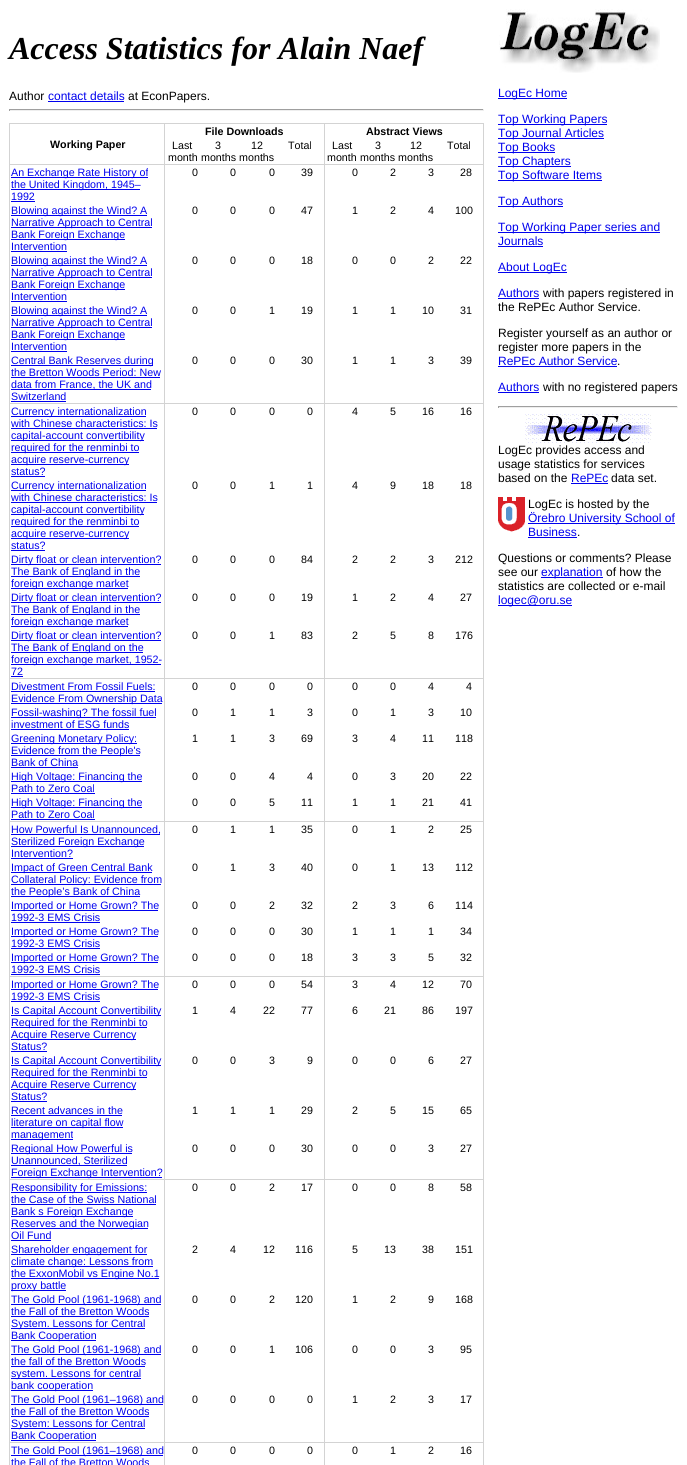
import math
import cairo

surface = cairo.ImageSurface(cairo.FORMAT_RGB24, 687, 1465)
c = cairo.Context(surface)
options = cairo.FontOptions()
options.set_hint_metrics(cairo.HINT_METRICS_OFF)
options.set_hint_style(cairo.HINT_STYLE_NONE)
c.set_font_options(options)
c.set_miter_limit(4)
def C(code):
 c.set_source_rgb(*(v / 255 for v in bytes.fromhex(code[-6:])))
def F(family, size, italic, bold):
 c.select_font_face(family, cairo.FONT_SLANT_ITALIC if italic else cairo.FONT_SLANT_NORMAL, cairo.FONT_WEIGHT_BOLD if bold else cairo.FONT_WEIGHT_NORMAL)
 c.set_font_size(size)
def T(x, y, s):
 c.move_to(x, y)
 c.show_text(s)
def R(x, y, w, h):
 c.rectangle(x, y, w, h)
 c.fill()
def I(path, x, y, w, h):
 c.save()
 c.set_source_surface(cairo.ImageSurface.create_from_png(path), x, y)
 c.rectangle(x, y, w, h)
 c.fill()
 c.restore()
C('ffffff')
c.paint()
F('Liberation Serif',32,1,1)
C('000000')
T(9,59,'Access Statistics for Alain Naef')
F('Liberation Sans',12,0,0)
T(9,100,'Author')
C('0000ee')
T(48,100,'contact details')
R(48,101,76,1)
C('000000')
T(128,100,'at EconPapers.')
C('9f9f9f')
R(9,109,475,1)
C('eeeeee')
R(483,109,1,2)
R(9,110,475,1)
C('9f9f9f')
R(9,109,1,2)
C('d3d3d3')
R(164,123,1,1342)
R(9,123,1,1342)
R(324,123,1,1342)
R(483,123,1,1342)
R(9,123,475,1)
F('Liberation Sans',10.7,0,1)
C('000000')
T(205,135,'File Downloads')
T(366,135,'Abstract Views')
T(50,148,'Working Paper')
C('d3d3d3')
R(9,164,475,1)
F('Liberation Sans',10.7,0,0)
C('000000')
T(172,149,'Last')
T(168,161,'month')
T(215,149,'3')
T(201,161,'months months')
T(251,149,'12')
T(288,149,'Total')
T(332,149,'Last')
T(327,161,'month')
T(375,149,'3')
T(360,161,'months months')
T(410,149,'12')
T(447,149,'Total')
C('0000ee')
R(11,177,137,1)
T(11,176,'An Exchange Rate History of')
R(11,189,129,1)
T(11,188,'the United Kingdom, 1945–')
T(11,200,'1992')
R(11,201,24,1)
C('000000')
T(192,176,'0')
T(230,176,'0')
T(269,176,'0')
T(301,176,'39')
T(352,176,'0')
T(390,176,'2')
T(428,176,'3')
T(460,176,'28')
C('0000ee')
R(11,215,136,1)
T(11,214,'Blowing against the Wind? A')
R(11,227,141,1)
T(11,226,'Narrative Approach to Central')
R(11,239,114,1)
T(11,238,'Bank Foreign Exchange')
T(11,250,'Intervention')
R(11,251,56,1)
C('000000')
T(192,214,'0')
T(230,214,'0')
T(269,214,'0')
T(301,214,'47')
T(352,214,'1')
T(390,214,'2')
T(428,214,'4')
T(455,214,'100')
C('0000ee')
R(11,265,136,1)
T(11,264,'Blowing against the Wind? A')
R(11,277,141,1)
T(11,276,'Narrative Approach to Central')
R(11,289,114,1)
T(11,288,'Bank Foreign Exchange')
T(11,300,'Intervention')
R(11,301,56,1)
C('000000')
T(192,264,'0')
T(230,264,'0')
T(269,264,'0')
T(301,264,'18')
T(352,264,'0')
T(390,264,'0')
T(428,264,'2')
T(460,264,'22')
C('0000ee')
R(11,315,136,1)
T(11,314,'Blowing against the Wind? A')
R(11,327,141,1)
T(11,326,'Narrative Approach to Central')
R(11,339,114,1)
T(11,338,'Bank Foreign Exchange')
T(11,350,'Intervention')
R(11,351,56,1)
C('000000')
T(192,314,'0')
T(230,314,'0')
T(269,314,'1')
T(301,314,'19')
T(352,314,'1')
T(390,314,'1')
T(422,314,'10')
T(460,314,'31')
C('d3d3d3')
R(9,403,475,1)
C('0000ee')
R(11,365,142,1)
T(11,364,'Central Bank Reserves during')
T(11,376,'the Bretton Woods Period: New')
R(11,377,149,1)
R(11,389,140,1)
T(11,388,'data from France, the UK and')
T(11,400,'Switzerland')
R(11,401,55,1)
C('000000')
T(192,364,'0')
T(230,364,'0')
T(269,364,'0')
T(301,364,'30')
T(352,364,'1')
T(390,364,'1')
T(428,364,'3')
T(460,364,'39')
C('0000ee')
R(11,416,135,1)
T(11,415,'Currency internationalization')
T(11,427,'with Chinese characteristics: Is')
R(11,428,146,1)
R(11,440,133,1)
T(11,439,'capital‐account convertibility')
R(11,452,128,1)
T(11,451,'required for the renminbi to')
R(11,464,118,1)
T(11,463,'acquire reserve‐currency')
T(11,475,'status?')
R(11,476,34,1)
C('000000')
T(192,415,'0')
T(230,415,'0')
T(269,415,'0')
T(307,415,'0')
T(352,415,'4')
T(390,415,'5')
T(422,415,'16')
T(460,415,'16')
C('0000ee')
R(11,490,135,1)
T(11,489,'Currency internationalization')
T(11,501,'with Chinese characteristics: Is')
R(11,502,146,1)
R(11,514,133,1)
T(11,513,'capital‐account convertibility')
R(11,526,128,1)
T(11,525,'required for the renminbi to')
R(11,538,118,1)
T(11,537,'acquire reserve‐currency')
T(11,549,'status?')
R(11,550,34,1)
C('000000')
T(192,489,'0')
T(230,489,'0')
T(269,489,'1')
T(307,489,'1')
T(352,489,'4')
T(390,489,'9')
T(422,489,'18')
T(460,489,'18')
C('0000ee')
R(11,564,150,1)
T(11,563,'Dirty float or clean intervention?')
R(11,576,129,1)
T(11,575,'The Bank of England in the')
R(11,588,117,1)
T(11,587,'foreign exchange market')
C('000000')
T(192,563,'0')
T(230,563,'0')
T(269,563,'0')
T(301,563,'84')
T(352,563,'2')
T(390,563,'2')
T(428,563,'3')
T(455,563,'212')
C('0000ee')
R(11,602,150,1)
T(11,601,'Dirty float or clean intervention?')
R(11,614,129,1)
T(11,613,'The Bank of England in the')
R(11,626,117,1)
T(11,625,'foreign exchange market')
C('000000')
T(192,601,'0')
T(230,601,'0')
T(269,601,'0')
T(301,601,'19')
T(352,601,'1')
T(390,601,'2')
T(428,601,'4')
T(460,601,'27')
C('d3d3d3')
R(9,678,475,1)
C('0000ee')
R(11,640,150,1)
T(11,639,'Dirty float or clean intervention?')
R(11,652,132,1)
T(11,651,'The Bank of England on the')
R(11,664,150,1)
T(11,663,'foreign exchange market, 1952-')
T(11,675,'72')
R(11,676,12,1)
C('000000')
T(192,639,'0')
T(230,639,'0')
T(269,639,'1')
T(301,639,'83')
T(352,639,'2')
T(390,639,'5')
T(428,639,'8')
T(455,639,'176')
C('0000ee')
T(11,690,'Divestment From Fossil Fuels:')
R(11,691,144,1)
R(11,703,151,1)
T(11,702,'Evidence From Ownership Data')
C('000000')
T(192,690,'0')
T(230,690,'0')
T(269,690,'0')
T(307,690,'0')
T(352,690,'0')
T(390,690,'0')
T(428,690,'4')
T(466,690,'4')
C('0000ee')
R(11,717,145,1)
T(11,716,'Fossil-washing? The fossil fuel')
T(11,728,'investment of ESG funds')
R(11,729,118,1)
C('000000')
T(192,716,'0')
T(230,716,'1')
T(269,716,'1')
T(307,716,'3')
T(352,716,'0')
T(390,716,'1')
T(428,716,'3')
T(460,716,'10')
C('0000ee')
R(11,743,126,1)
T(11,742,'Greening Monetary Policy:')
R(11,755,129,1)
T(11,754,'Evidence from the People\'s')
T(11,766,'Bank of China')
R(11,767,67,1)
C('000000')
T(192,742,'1')
T(230,742,'1')
T(269,742,'3')
T(301,742,'69')
T(352,742,'3')
T(390,742,'4')
T(422,742,'11')
T(455,742,'118')
C('0000ee')
R(11,781,131,1)
T(11,780,'High Voltage: Financing the')
T(11,792,'Path to Zero Coal')
R(11,793,84,1)
C('000000')
T(192,780,'0')
T(230,780,'0')
T(269,780,'4')
T(307,780,'4')
T(352,780,'0')
T(390,780,'3')
T(422,780,'20')
T(460,780,'22')
C('d3d3d3')
R(9,821,475,1)
C('0000ee')
R(11,807,131,1)
T(11,806,'High Voltage: Financing the')
T(11,818,'Path to Zero Coal')
R(11,819,84,1)
C('000000')
T(192,806,'0')
T(230,806,'0')
T(269,806,'5')
T(301,806,'11')
T(352,806,'1')
T(390,806,'1')
T(422,806,'21')
T(460,806,'41')
C('0000ee')
R(11,834,149,1)
T(11,833,'How Powerful Is Unannounced,')
R(11,846,133,1)
T(11,845,'Sterilized Foreign Exchange')
T(11,857,'Intervention?')
R(11,858,62,1)
C('000000')
T(192,833,'0')
T(230,833,'1')
T(269,833,'1')
T(301,833,'35')
T(352,833,'0')
T(390,833,'1')
T(428,833,'2')
T(460,833,'25')
C('0000ee')
R(11,872,141,1)
T(11,871,'Impact of Green Central Bank')
R(11,884,150,1)
T(11,883,'Collateral Policy: Evidence from')
R(11,896,129,1)
T(11,895,'the People’s Bank of China')
C('000000')
T(192,871,'0')
T(230,871,'1')
T(269,871,'3')
T(301,871,'40')
T(352,871,'0')
T(390,871,'1')
T(422,871,'13')
T(455,871,'112')
C('0000ee')
R(11,910,147,1)
T(11,909,'Imported or Home Grown? The')
T(11,921,'1992-3 EMS Crisis')
R(11,922,89,1)
C('000000')
T(192,909,'0')
T(230,909,'0')
T(269,909,'2')
T(301,909,'32')
T(352,909,'2')
T(390,909,'3')
T(428,909,'6')
T(455,909,'114')
C('0000ee')
R(11,936,147,1)
T(11,935,'Imported or Home Grown? The')
T(11,947,'1992-3 EMS Crisis')
R(11,948,89,1)
C('000000')
T(192,935,'0')
T(230,935,'0')
T(269,935,'0')
T(301,935,'30')
T(352,935,'1')
T(390,935,'1')
T(428,935,'1')
T(460,935,'34')
C('d3d3d3')
R(9,976,475,1)
C('0000ee')
R(11,962,147,1)
T(11,961,'Imported or Home Grown? The')
T(11,973,'1992-3 EMS Crisis')
R(11,974,89,1)
C('000000')
T(192,961,'0')
T(230,961,'0')
T(269,961,'0')
T(301,961,'18')
T(352,961,'3')
T(390,961,'3')
T(428,961,'5')
T(460,961,'32')
C('0000ee')
R(11,989,147,1)
T(11,988,'Imported or Home Grown? The')
T(11,1000,'1992-3 EMS Crisis')
R(11,1001,89,1)
C('000000')
T(192,988,'0')
T(230,988,'0')
T(269,988,'0')
T(301,988,'54')
T(352,988,'3')
T(390,988,'4')
T(422,988,'12')
T(460,988,'70')
C('0000ee')
R(11,1015,150,1)
T(11,1014,'Is Capital Account Convertibility')
R(11,1027,136,1)
T(11,1026,'Required for the Renminbi to')
R(11,1039,125,1)
T(11,1038,'Acquire Reserve Currency')
T(11,1050,'Status?')
R(11,1051,36,1)
C('000000')
T(192,1014,'1')
T(230,1014,'4')
T(263,1014,'22')
T(301,1014,'77')
T(352,1014,'6')
T(384,1014,'21')
T(422,1014,'86')
T(455,1014,'197')
C('0000ee')
R(11,1065,150,1)
T(11,1064,'Is Capital Account Convertibility')
R(11,1077,136,1)
T(11,1076,'Required for the Renminbi to')
R(11,1089,125,1)
T(11,1088,'Acquire Reserve Currency')
T(11,1100,'Status?')
R(11,1101,36,1)
C('000000')
T(192,1064,'0')
T(230,1064,'0')
T(269,1064,'3')
T(307,1064,'9')
T(352,1064,'0')
T(390,1064,'0')
T(428,1064,'6')
T(460,1064,'27')
C('0000ee')
T(11,1114,'Recent advances in the')
R(11,1115,111,1)
R(11,1127,112,1)
T(11,1126,'literature on capital flow')
R(11,1139,62,1)
T(11,1138,'management')
C('000000')
T(192,1114,'1')
T(230,1114,'1')
T(269,1114,'1')
T(301,1114,'29')
T(352,1114,'2')
T(390,1114,'5')
T(422,1114,'15')
T(460,1114,'65')
C('d3d3d3')
R(9,1179,475,1)
C('0000ee')
R(11,1153,121,1)
T(11,1152,'Regional How Powerful is')
R(11,1165,116,1)
T(11,1164,'Unannounced, Sterilized')
R(11,1177,151,1)
T(11,1176,'Foreign Exchange Intervention?')
C('000000')
T(192,1152,'0')
T(230,1152,'0')
T(269,1152,'0')
T(301,1152,'30')
T(352,1152,'0')
T(390,1152,'0')
T(428,1152,'3')
T(460,1152,'27')
C('0000ee')
R(11,1192,136,1)
T(11,1191,'Responsibility for Emissions:')
T(11,1203,'the Case of the Swiss National')
R(11,1204,145,1)
R(11,1216,122,1)
T(11,1215,'Bank s Foreign Exchange')
R(11,1228,137,1)
T(11,1227,'Reserves and the Norwegian')
T(11,1239,'Oil Fund')
R(11,1240,40,1)
C('000000')
T(192,1191,'0')
T(230,1191,'0')
T(269,1191,'2')
T(301,1191,'17')
T(352,1191,'0')
T(390,1191,'0')
T(428,1191,'8')
T(460,1191,'58')
C('0000ee')
R(11,1254,136,1)
T(11,1253,'Shareholder engagement for')
R(11,1266,142,1)
T(11,1265,'climate change: Lessons from')
R(11,1278,148,1)
T(11,1277,'the ExxonMobil vs Engine No.1')
R(11,1290,55,1)
T(11,1289,'proxy battle')
C('000000')
T(192,1253,'2')
T(230,1253,'4')
T(263,1253,'12')
T(295,1253,'116')
T(352,1253,'5')
T(384,1253,'13')
T(422,1253,'38')
T(455,1253,'151')
C('0000ee')
R(11,1304,150,1)
T(11,1303,'The Gold Pool (1961-1968) and')
T(11,1315,'the Fall of the Bretton Woods')
R(11,1316,138,1)
R(11,1328,134,1)
T(11,1327,'System. Lessons for Central')
R(11,1340,85,1)
T(11,1339,'Bank Cooperation')
C('000000')
T(192,1303,'0')
T(230,1303,'0')
T(269,1303,'2')
T(295,1303,'120')
T(352,1303,'1')
T(390,1303,'2')
T(428,1303,'9')
T(455,1303,'168')
C('0000ee')
R(11,1354,150,1)
T(11,1353,'The Gold Pool (1961-1968) and')
T(11,1365,'the fall of the Bretton Woods')
R(11,1366,134,1)
R(11,1378,130,1)
T(11,1377,'system. Lessons for central')
R(11,1390,82,1)
T(11,1389,'bank cooperation')
C('000000')
T(192,1353,'0')
T(230,1353,'0')
T(269,1353,'1')
T(295,1353,'106')
T(352,1353,'0')
T(390,1353,'0')
T(428,1353,'3')
T(460,1353,'95')
C('d3d3d3')
R(9,1442,475,1)
C('0000ee')
R(11,1404,152,1)
T(11,1403,'The Gold Pool (1961–1968) and')
T(11,1415,'the Fall of the Bretton Woods')
R(11,1416,138,1)
R(11,1428,134,1)
T(11,1427,'System: Lessons for Central')
R(11,1440,85,1)
T(11,1439,'Bank Cooperation')
C('000000')
T(192,1403,'0')
T(230,1403,'0')
T(269,1403,'0')
T(307,1403,'0')
T(352,1403,'1')
T(390,1403,'2')
T(428,1403,'3')
T(460,1403,'17')
C('0000ee')
R(11,1455,152,1)
T(11,1454,'The Gold Pool (1961–1968) and')
T(11,1466,'the Fall of the Bretton Woods')
C('000000')
T(192,1454,'0')
T(230,1454,'0')
T(269,1454,'0')
T(307,1454,'0')
T(352,1454,'0')
T(390,1454,'1')
T(428,1454,'2')
T(460,1454,'16')
I('1.png',499,9,161,64)
C('0000ee')
R(498,98,69,1)
F('Liberation Sans',12,0,0)
T(498,97,'LogEc Home')
R(498,124,109,1)
T(498,123,'Top Working Papers')
R(498,138,106,1)
T(498,137,'Top Journal Articles')
R(498,152,57,1)
T(498,151,'Top Books')
R(498,166,73,1)
T(498,165,'Top Chapters')
R(498,180,104,1)
T(498,179,'Top Software Items')
R(498,206,65,1)
T(498,205,'Top Authors')
R(498,232,162,1)
T(498,231,'Top Working Paper series and')
T(498,245,'Journals')
R(498,246,45,1)
R(498,272,69,1)
T(498,271,'About LogEc')
T(498,297,'Authors')
R(498,298,41,1)
C('000000')
T(543,297,'with papers registered in')
T(498,311,'the RePEc Author Service.')
T(498,337,'Register yourself as an author or')
T(498,351,'register more papers in the')
C('0000ee')
T(498,365,'RePEc Author Service')
R(498,366,119,1)
C('000000')
T(617,365,'.')
C('0000ee')
T(498,391,'Authors')
R(498,392,41,1)
C('000000')
T(543,391,'with no registered papers')
C('9f9f9f')
R(498,406,180,1)
C('eeeeee')
R(677,406,1,2)
R(498,407,180,1)
C('9f9f9f')
R(498,406,1,2)
I('2.png',525,414,127,29)
C('000000')
T(498,454,'LogEc provides access and')
T(498,468,'usage statistics for services')
T(498,482,'based on the')
C('0000ee')
T(571,482,'RePEc')
R(571,483,37,1)
C('000000')
T(611,482,'data set.')
I('3.png',498,497,27,35)
T(528,508,'LogEc is hosted by the')
C('0000ee')
R(528,523,147,1)
T(528,522,'Örebro University School of')
T(528,536,'Business')
R(528,537,49,1)
C('000000')
T(577,536,'.')
T(498,562,'Questions or comments? Please')
T(498,576,'see our')
C('0000ee')
R(541,577,62,1)
T(541,576,'explanation')
C('000000')
T(606,576,'of how the')
T(498,590,'statistics are collected or e-mail')
C('0000ee')
R(498,605,74,1)
T(498,604,'logec@oru.se')
surface.write_to_png('o.png')
